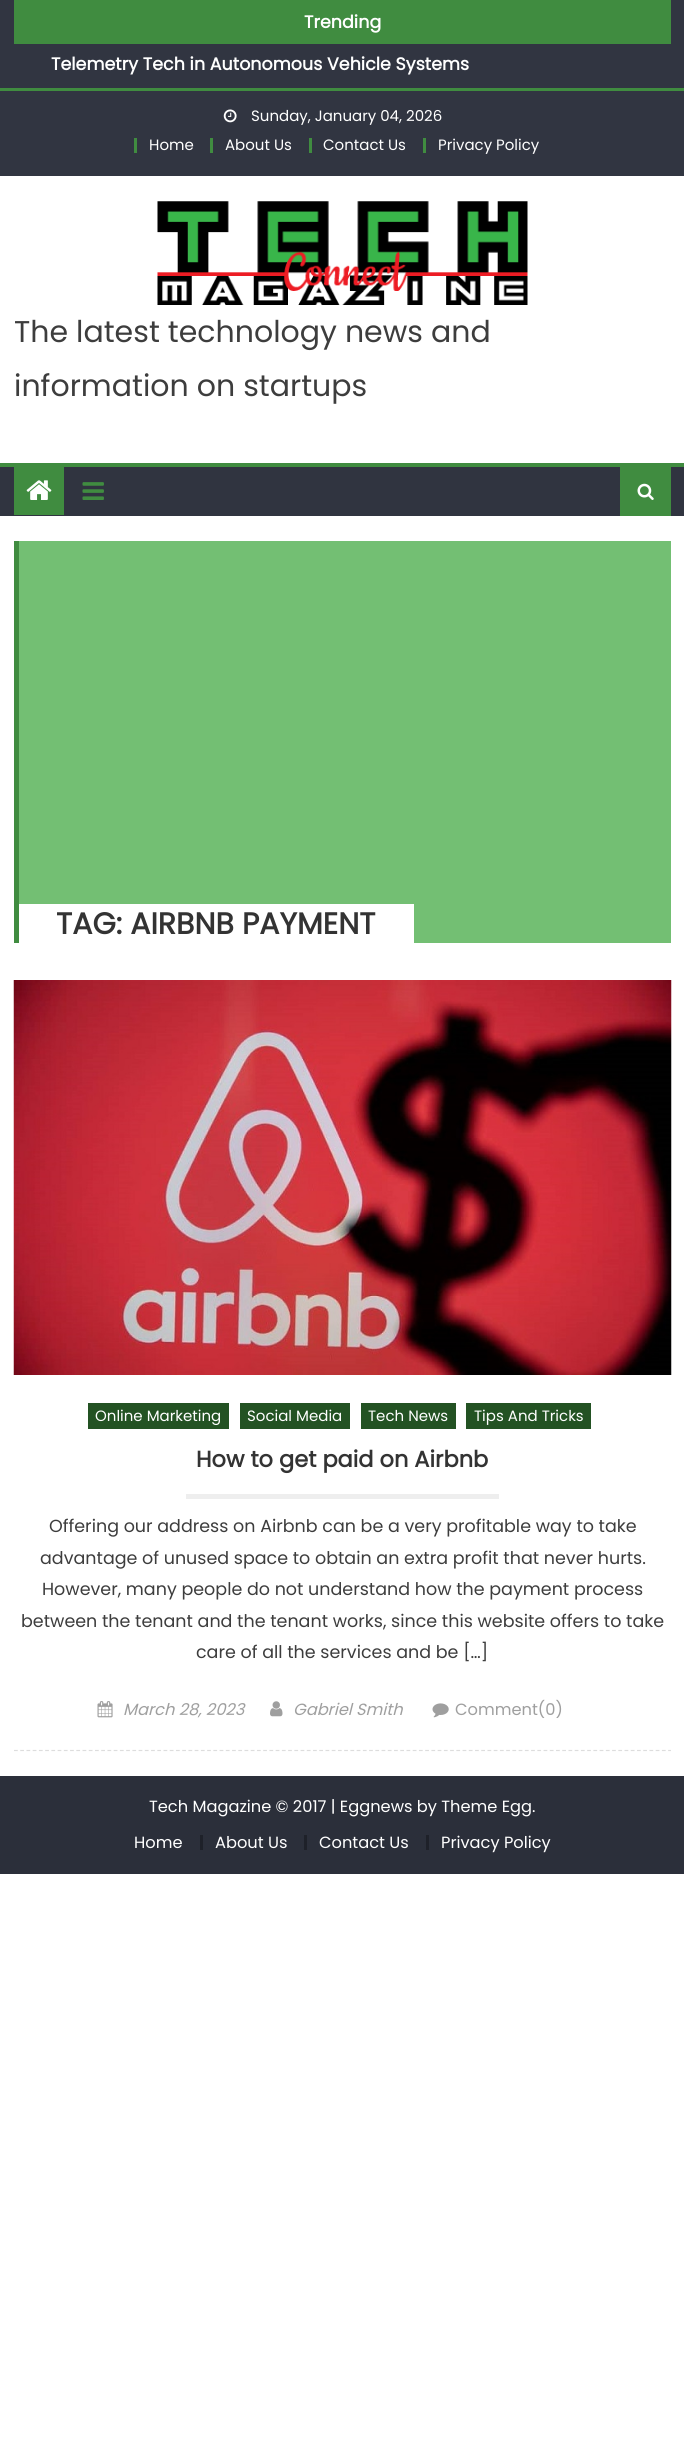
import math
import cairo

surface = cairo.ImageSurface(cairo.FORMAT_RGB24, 684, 2464)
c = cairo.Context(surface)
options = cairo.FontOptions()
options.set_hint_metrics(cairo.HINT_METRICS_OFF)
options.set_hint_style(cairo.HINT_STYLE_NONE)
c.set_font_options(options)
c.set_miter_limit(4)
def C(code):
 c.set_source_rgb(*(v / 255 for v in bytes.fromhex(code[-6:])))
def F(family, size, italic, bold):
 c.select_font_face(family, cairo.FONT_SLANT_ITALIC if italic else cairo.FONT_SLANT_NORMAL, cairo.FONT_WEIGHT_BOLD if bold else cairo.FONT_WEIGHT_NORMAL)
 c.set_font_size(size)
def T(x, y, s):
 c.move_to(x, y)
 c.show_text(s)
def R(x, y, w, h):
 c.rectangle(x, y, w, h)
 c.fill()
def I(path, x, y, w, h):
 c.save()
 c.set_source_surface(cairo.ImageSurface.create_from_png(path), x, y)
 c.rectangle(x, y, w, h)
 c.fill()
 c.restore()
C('ffffff')
c.paint()
C('313541')
R(0,0,684,88)
C('408c40')
R(14,0,657,44)
F('Poppins',17.5,0,1)
C('ffffff')
T(304,28,'Trending')
T(51,70,'Telemetry Tech in Autonomous Vehicle Systems')
C('313541')
R(0,91,684,85)
C('408c40')
R(0,88,684,3)
I('1.png',223,109,14,14)
F('Poppins',15,0,0)
C('ffffff')
T(251,121,'Sunday, January 04, 2026')
C('408c40')
R(134,138,3,15)
C('ffffff')
T(149,150,'Home')
C('408c40')
R(210,138,3,15)
C('ffffff')
T(225,150,'About Us')
C('408c40')
R(309,138,3,15)
C('ffffff')
T(323,150,'Contact Us')
C('408c40')
R(423,138,3,15)
C('ffffff')
T(438,150,'Privacy Policy')
I('2.png',157,201,371,104)
F('Poppins',30,0,0)
C('3d3d3d')
T(14,342,'The latest technology news and')
T(14,396,'information on startups')
C('303440')
R(0,467,684,49)
C('408c40')
R(0,463,684,4)
R(14,467,50,48)
I('3.png',26,480,26,20)
I('4.png',82,482,22,18)
R(620,467,51,49)
I('5.png',637,483,17,17)
C('73bf73')
R(19,541,652,402)
C('408c40')
R(14,541,5,402)
C('ffffff')
R(19,904,395,39)
F('Poppins',30,0,1)
C('333333')
T(56,934,'TAG: AIRBNB PAYMENT')
c.new_path()
c.move_to(14,1750.5)
c.line_to(671,1750.5)
C('dddddd')
c.set_line_width(1.2)
c.set_dash([3.75,2.48])
c.stroke()
I('6.png',13,980,659,395)
C('235223')
R(88,1403,141,26)
F('Poppins',15,0,0)
C('ffffff')
T(95,1421,'Online Marketing')
C('235223')
R(240,1403,110,26)
C('ffffff')
T(247,1421,'Social Media')
C('235223')
R(361,1403,95,26)
C('ffffff')
T(368,1421,'Tech News')
C('235223')
R(466,1403,125,26)
C('ffffff')
T(474,1421,'Tips And Tricks')
F('Poppins',22.5,0,1)
C('333333')
T(196,1467,'How to get paid on Airbnb')
C('eeeeee')
R(186,1494,313,5)
F('Poppins',17.5,0,0)
C('3d3d3d')
T(49,1532,'Offering our address on Airbnb can be a very profitable way to take')
T(40,1564,'advantage of unused space to obtain an extra profit that never hurts.')
T(42,1595,'However, many people do not understand how the payment process')
T(21,1627,'between the tenant and the tenant works, since this website offers to take')
T(196,1658,'care of all the services and be […]')
I('7.png',97,1701,16,17)
F('Poppins',16.25,1,0)
C('9f9f9f')
T(123,1715,'March 28, 2023')
I('8.png',270,1701,13,16)
T(293,1715,'Gabriel Smith')
I('9.png',432,1703,17,15)
F('Poppins',16.25,0,0)
T(455,1715,'Comment(0)')
C('2b2f3a')
R(0,1776,684,98)
C('ffffff')
T(149,1812,'Tech Magazine © 2017 | Eggnews by Theme Egg.')
T(134,1848,'Home')
C('1e2129')
R(200,1835,3,15)
C('ffffff')
T(215,1848,'About Us')
C('1e2129')
R(304,1835,3,15)
C('ffffff')
T(319,1848,'Contact Us')
C('1e2129')
R(426,1835,3,15)
C('ffffff')
T(441,1848,'Privacy Policy')
surface.write_to_png('o.png')
